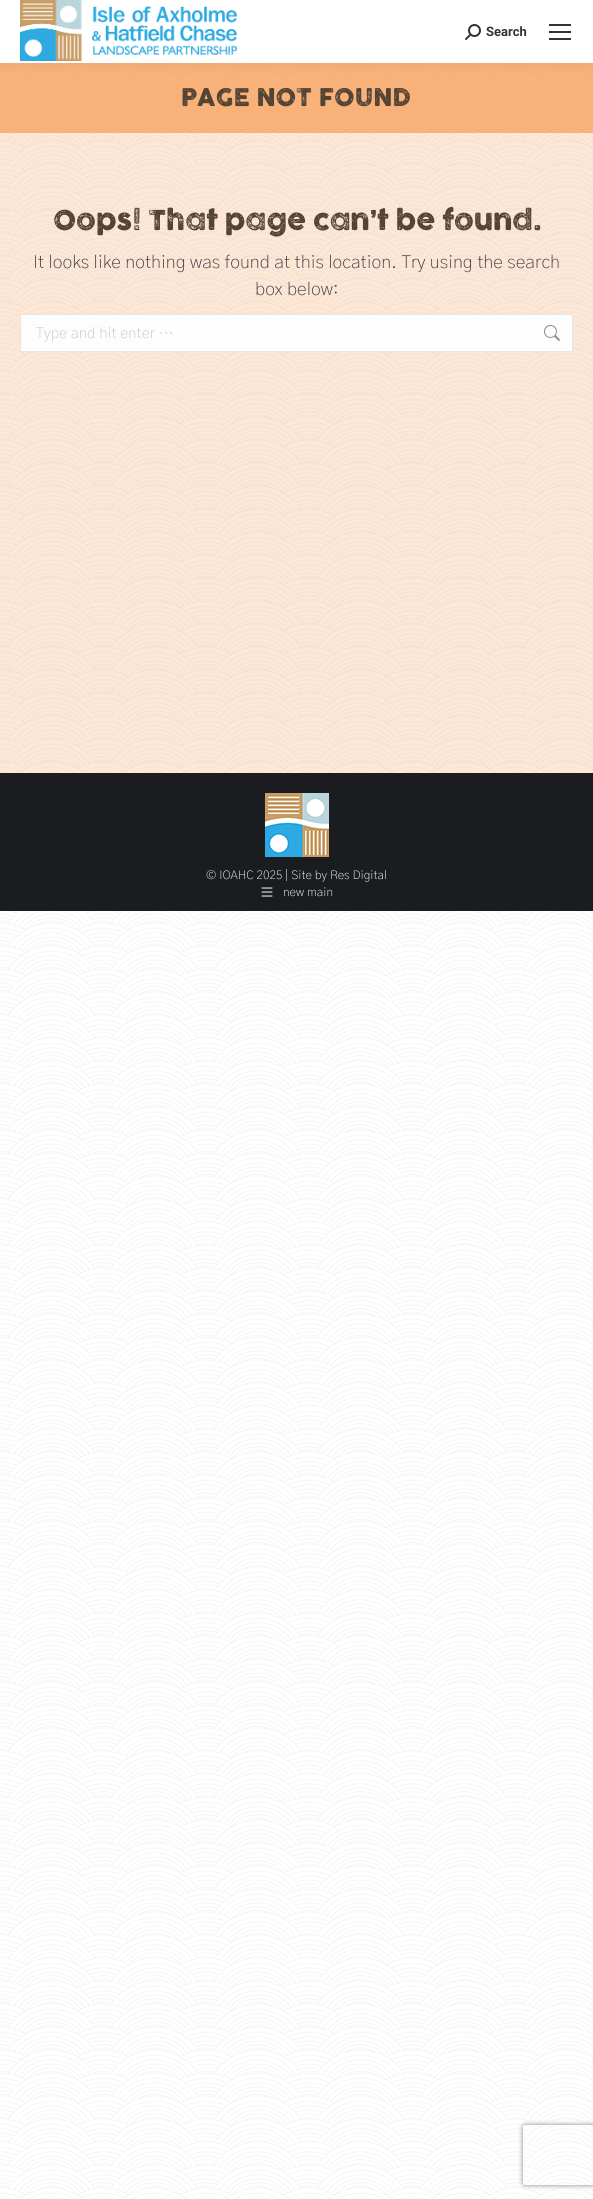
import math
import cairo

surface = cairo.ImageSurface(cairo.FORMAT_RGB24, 593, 2199)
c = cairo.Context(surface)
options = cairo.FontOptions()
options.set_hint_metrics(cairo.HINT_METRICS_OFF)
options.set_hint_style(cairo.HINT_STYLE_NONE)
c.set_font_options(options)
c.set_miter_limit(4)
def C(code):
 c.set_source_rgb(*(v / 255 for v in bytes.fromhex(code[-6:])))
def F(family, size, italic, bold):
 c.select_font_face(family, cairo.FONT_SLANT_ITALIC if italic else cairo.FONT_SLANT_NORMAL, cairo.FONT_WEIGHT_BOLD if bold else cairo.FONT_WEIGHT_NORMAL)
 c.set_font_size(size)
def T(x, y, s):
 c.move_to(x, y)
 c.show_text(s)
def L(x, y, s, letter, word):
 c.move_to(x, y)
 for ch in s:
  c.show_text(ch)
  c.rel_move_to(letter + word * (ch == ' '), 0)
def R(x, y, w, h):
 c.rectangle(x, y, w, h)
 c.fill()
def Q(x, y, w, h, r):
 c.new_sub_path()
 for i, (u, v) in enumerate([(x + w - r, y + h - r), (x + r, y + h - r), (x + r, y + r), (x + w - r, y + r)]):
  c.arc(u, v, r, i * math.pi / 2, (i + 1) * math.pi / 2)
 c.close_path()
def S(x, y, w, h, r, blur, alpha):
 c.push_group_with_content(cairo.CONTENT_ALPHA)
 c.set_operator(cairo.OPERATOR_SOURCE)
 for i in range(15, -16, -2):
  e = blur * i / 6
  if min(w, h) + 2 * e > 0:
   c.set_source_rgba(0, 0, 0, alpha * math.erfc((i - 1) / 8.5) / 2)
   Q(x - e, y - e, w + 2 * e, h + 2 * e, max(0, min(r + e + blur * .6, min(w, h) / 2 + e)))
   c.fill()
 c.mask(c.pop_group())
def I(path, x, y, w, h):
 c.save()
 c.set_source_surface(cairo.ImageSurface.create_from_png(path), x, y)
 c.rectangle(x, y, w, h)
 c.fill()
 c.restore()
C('ffffff')
c.paint()
I('1.png',0,63,593,2136)
c.set_source_rgba(0.969,0.6,0.31,0.22)
R(0,63,593,710)
c.set_source_rgba(0.969,0.6,0.31,0.68)
R(0,63,593,70)
C('000000')
S(-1,-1,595,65,0,7.5,.07)
C('ffffff')
R(0,0,593,63)
I('2.png',20,0,217,61)
I('3.png',465,24,16,16)
F('Roboto',13,0,1)
C('333333')
T(486,36,'Search')
R(549,24,22,2)
R(549,31,22,2)
R(549,38,22,2)
F('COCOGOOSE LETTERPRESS',24,0,0)
C('534334')
L(181,106,'PAGE NOT FOUND',0,-1)
F('COCOGOOSE LETTERPRESS',27,0,0)
L(53,230,'Oops! That page can’t be found.',0,-1.5)
F('Gothic A1 ExtraLight',18,0,0)
C('3d3b42')
T(33,268,'It looks like nothing was found at this location. Try using the search')
T(255,295,'box below:')
C('fdfdfd')
Q(20,314,553,38,1)
c.fill()
c.rectangle(20.5,314.5,552,37)
c.set_source_rgba(0.2,0.2,0.2,0.12)
c.set_line_width(1)
c.stroke()
F('Gothic A1 ExtraLight',15,0,0)
C('c4c5c9')
T(36,338,'Type and hit enter …')
I('4.png',544,325,16,16)
C('1a1c20')
R(0,773,593,138)
I('5.png',265,793,64,64)
F('Gothic A1 ExtraLight',12,0,0)
C('ffffff')
T(206,879,'© IOAHC 2025 | Site by Res Digital')
I('6.png',261,887,12,10)
T(283,896,'new main')
c.save()
c.set_fill_rule(cairo.FILL_RULE_EVEN_ODD)
c.new_path()
c.move_to(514,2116)
c.line_to(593,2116)
c.line_to(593,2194)
c.line_to(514,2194)
c.close_path()
c.move_to(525,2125)
c.line_to(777,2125)
c.curve_to(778,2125,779,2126,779,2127)
c.line_to(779,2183)
c.curve_to(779,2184,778,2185,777,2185)
c.line_to(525,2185)
c.curve_to(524,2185,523,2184,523,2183)
c.line_to(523,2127)
c.curve_to(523,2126,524,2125,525,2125)
c.close_path()
c.clip()
C('808080')
S(523,2125,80,60,2,2.5,1)
c.restore()
surface.write_to_png('o.png')
